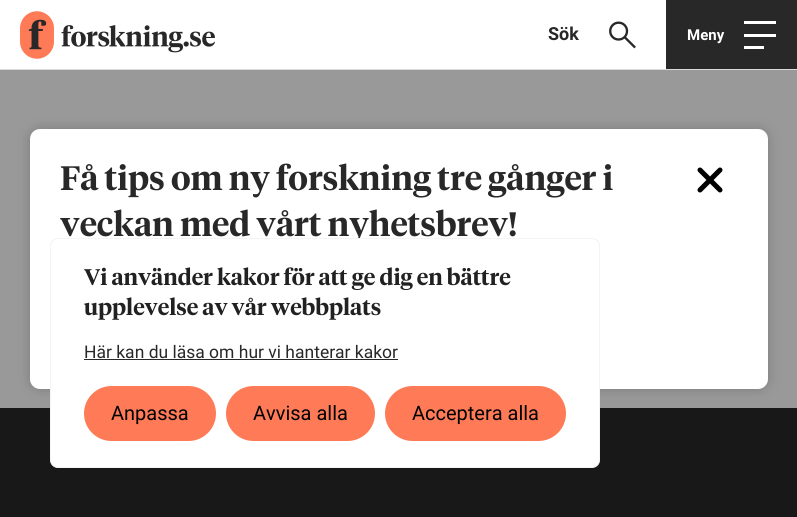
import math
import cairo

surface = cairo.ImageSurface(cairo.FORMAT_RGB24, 797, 517)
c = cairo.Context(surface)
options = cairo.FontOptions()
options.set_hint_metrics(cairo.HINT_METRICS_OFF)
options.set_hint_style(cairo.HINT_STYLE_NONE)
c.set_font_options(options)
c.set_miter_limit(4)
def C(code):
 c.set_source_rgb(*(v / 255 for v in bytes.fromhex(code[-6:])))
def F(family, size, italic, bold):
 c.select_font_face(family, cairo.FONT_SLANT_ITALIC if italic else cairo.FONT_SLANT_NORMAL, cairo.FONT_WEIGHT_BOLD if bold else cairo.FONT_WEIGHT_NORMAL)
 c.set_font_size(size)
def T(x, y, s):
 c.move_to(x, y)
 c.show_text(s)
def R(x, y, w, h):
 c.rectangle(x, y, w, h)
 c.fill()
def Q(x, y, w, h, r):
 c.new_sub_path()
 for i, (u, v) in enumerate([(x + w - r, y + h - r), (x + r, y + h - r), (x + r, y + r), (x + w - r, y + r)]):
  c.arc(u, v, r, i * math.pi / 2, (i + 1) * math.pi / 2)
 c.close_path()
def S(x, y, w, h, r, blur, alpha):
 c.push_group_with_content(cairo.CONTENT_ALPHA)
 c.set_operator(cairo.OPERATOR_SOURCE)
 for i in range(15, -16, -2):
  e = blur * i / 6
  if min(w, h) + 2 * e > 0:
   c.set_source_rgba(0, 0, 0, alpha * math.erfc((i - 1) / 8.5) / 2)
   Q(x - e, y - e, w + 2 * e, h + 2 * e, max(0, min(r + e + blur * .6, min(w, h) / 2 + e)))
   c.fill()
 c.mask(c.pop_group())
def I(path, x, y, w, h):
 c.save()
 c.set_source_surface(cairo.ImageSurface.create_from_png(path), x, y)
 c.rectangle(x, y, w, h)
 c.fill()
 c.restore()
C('999999')
c.paint()
C('dad9d9')
R(0,69,797,1)
C('ffffff')
R(0,0,666,69)
I('1.png',20,11,195,48)
F('Roboto',18,0,1)
C('282828')
T(548,40,'Sök')
I('2.png',609,21,27,28)
R(666,0,131,69)
F('Roboto',15,0,1)
C('ffffff')
T(687,40,'Meny')
R(744,21,32,3)
R(744,34,32,3)
R(744,46,20,3)
C('000000')
S(30,129,738,260,10,6,.2)
C('ffffff')
Q(30,129,738,260,10)
c.fill()
F('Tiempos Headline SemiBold',33.75,0,0)
C('282828')
T(60,190,'Få tips om ny forskning tre gånger i')
T(60,236,'veckan med vårt nyhetsbrev!')
I('3.png',697,167,26,26)
C('181818')
R(0,408,797,109)
c.save()
Q(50,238,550,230,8)
c.clip()
C('acabab')
S(50,236,550,230,8,6,.3)
c.restore()
C('ffffff')
Q(50.5,238.5,549,229,7.5)
c.fill_preserve()
C('f4f4f4')
c.set_line_width(1)
c.stroke()
F('Tiempos Headline SemiBold',22.5,0,0)
C('212121')
T(84,285,'Vi använder kakor för att ge dig en bättre')
T(84,315,'upplevelse av vår webbplats')
F('Roboto',17.5,0,0)
C('282828')
T(84,358,'Här kan du läsa om hur vi hanterar kakor')
R(84,359,314,1)
C('ff7b57')
Q(85.5,387.5,129,52,26)
c.fill_preserve()
c.set_line_width(3)
c.stroke()
F('Roboto',20,0,0)
C('000000')
T(111,420,'Anpassa')
C('ff7b57')
Q(227.5,387.5,146,52,26)
c.fill_preserve()
c.stroke()
C('000000')
T(253,420,'Avvisa alla')
C('ff7b57')
Q(386.5,387.5,178,52,26)
c.fill_preserve()
c.stroke()
C('000000')
T(412,420,'Acceptera alla')
surface.write_to_png('o.png')
